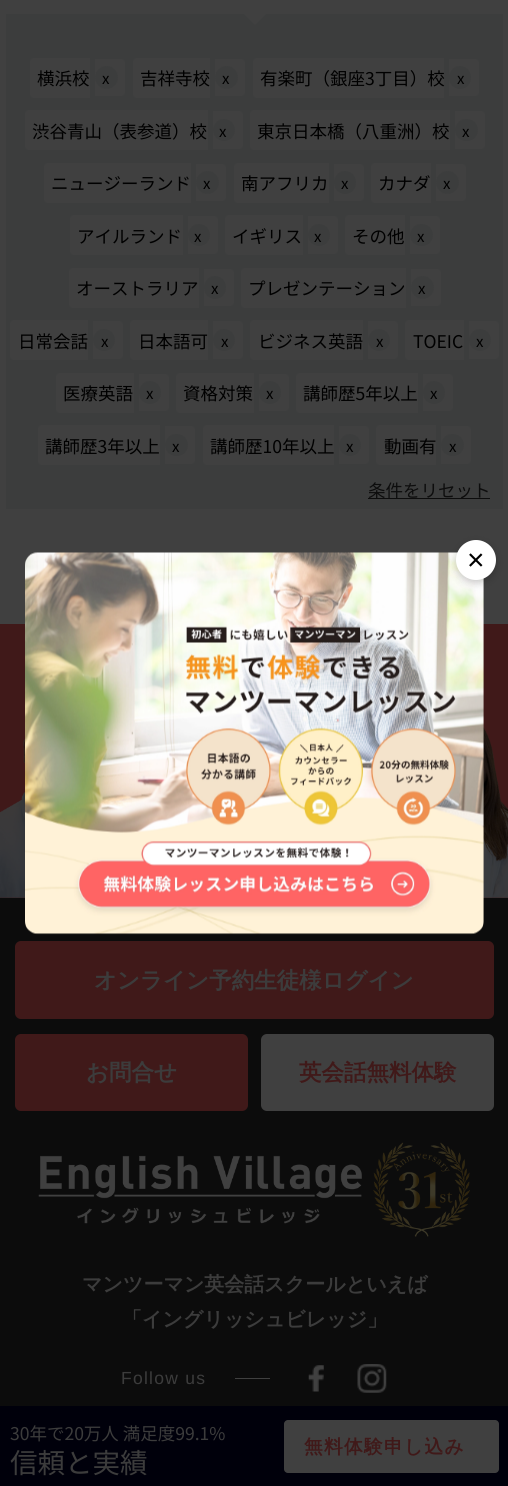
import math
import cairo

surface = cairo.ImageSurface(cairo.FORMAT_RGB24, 508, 1486)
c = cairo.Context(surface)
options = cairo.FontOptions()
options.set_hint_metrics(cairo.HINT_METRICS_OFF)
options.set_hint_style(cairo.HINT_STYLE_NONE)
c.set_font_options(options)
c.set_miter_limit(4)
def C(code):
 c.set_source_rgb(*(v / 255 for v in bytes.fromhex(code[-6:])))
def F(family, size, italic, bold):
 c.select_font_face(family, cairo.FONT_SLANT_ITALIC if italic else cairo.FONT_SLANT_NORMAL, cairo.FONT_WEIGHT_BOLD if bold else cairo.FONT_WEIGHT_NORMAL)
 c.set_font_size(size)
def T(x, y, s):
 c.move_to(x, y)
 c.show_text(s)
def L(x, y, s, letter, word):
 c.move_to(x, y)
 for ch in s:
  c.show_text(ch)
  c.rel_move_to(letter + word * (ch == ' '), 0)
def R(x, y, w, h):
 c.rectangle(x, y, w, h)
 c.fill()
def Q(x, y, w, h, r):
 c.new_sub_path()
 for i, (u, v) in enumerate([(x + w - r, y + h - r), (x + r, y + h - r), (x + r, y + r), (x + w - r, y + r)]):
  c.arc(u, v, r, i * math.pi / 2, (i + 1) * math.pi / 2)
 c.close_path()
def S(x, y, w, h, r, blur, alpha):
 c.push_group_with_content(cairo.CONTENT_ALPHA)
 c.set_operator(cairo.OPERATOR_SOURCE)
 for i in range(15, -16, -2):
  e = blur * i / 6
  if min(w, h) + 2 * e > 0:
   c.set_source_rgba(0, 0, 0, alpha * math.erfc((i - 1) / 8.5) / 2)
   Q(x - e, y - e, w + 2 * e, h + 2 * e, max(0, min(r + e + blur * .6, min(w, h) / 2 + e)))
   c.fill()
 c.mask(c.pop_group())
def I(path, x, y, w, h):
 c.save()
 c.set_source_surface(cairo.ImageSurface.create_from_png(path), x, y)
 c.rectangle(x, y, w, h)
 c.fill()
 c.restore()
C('404040')
c.paint()
C('3c3d3d')
R(6,14,497,495)
C('404040')
c.new_path()
c.move_to(244,14)
c.line_to(266,14)
c.line_to(255,25)
c.close_path()
c.fill()
c.new_path()
c.move_to(34,58)
c.line_to(90,58)
c.line_to(90,98)
c.line_to(34,98)
c.curve_to(32,98,30,96,30,94)
c.line_to(30,62)
c.curve_to(30,60,32,58,34,58)
c.close_path()
c.fill()
c.new_path()
c.move_to(95,59)
c.line_to(121,59)
c.curve_to(123,59,125,61,125,63)
c.line_to(125,92)
c.curve_to(125,94,123,96,121,96)
c.line_to(95,96)
c.close_path()
c.fill()
F('Noto Sans JP',17.5,0,0)
C('000000')
T(37,85,'横浜校')
C('3c3d3d')
c.new_path()
c.arc(106.5,77.5,11.5,0,2 * math.pi)
c.fill()
F('Noto Sans JP',15,0,0)
C('000000')
T(102,84,'x')
C('404040')
c.new_path()
c.move_to(137,58)
c.line_to(210,58)
c.line_to(210,98)
c.line_to(137,98)
c.curve_to(135,98,133,96,133,94)
c.line_to(133,62)
c.curve_to(133,60,135,58,137,58)
c.close_path()
c.fill()
c.new_path()
c.move_to(215,59)
c.line_to(241,59)
c.curve_to(243,59,245,61,245,63)
c.line_to(245,92)
c.curve_to(245,94,243,96,241,96)
c.line_to(215,96)
c.close_path()
c.fill()
F('Noto Sans JP',17.5,0,0)
C('000000')
T(140,85,'吉祥寺校')
C('3c3d3d')
c.new_path()
c.arc(226.5,77.5,11.5,0,2 * math.pi)
c.fill()
F('Noto Sans JP',15,0,0)
C('000000')
T(222,84,'x')
C('404040')
c.new_path()
c.move_to(257,58)
c.line_to(444,58)
c.line_to(444,98)
c.line_to(257,98)
c.curve_to(255,98,253,96,253,94)
c.line_to(253,62)
c.curve_to(253,60,255,58,257,58)
c.close_path()
c.fill()
c.new_path()
c.move_to(449,59)
c.line_to(475,59)
c.curve_to(477,59,479,61,479,63)
c.line_to(479,92)
c.curve_to(479,94,477,96,475,96)
c.line_to(449,96)
c.close_path()
c.fill()
F('Noto Sans JP',17.5,0,0)
C('000000')
T(260,85,'有楽町（銀座3丁目）校')
C('3c3d3d')
Q(449,66,22,23,11)
c.fill()
F('Noto Sans JP',15,0,0)
C('000000')
T(457,84,'x')
C('404040')
c.new_path()
c.move_to(29,110)
c.line_to(208,110)
c.line_to(208,150)
c.line_to(29,150)
c.curve_to(27,150,25,148,25,146)
c.line_to(25,114)
c.curve_to(25,112,27,110,29,110)
c.close_path()
c.fill()
c.new_path()
c.move_to(213,111)
c.line_to(239,111)
c.curve_to(241,111,243,113,243,115)
c.line_to(243,145)
c.curve_to(243,147,241,149,239,149)
c.line_to(213,149)
c.close_path()
c.fill()
F('Noto Sans JP',17.5,0,0)
C('000000')
T(32,138,'渋谷青山（表参道）校')
C('3c3d3d')
c.new_path()
c.arc(224,130,11,0,2 * math.pi)
c.fill()
F('Noto Sans JP',15,0,0)
C('000000')
T(219,137,'x')
C('404040')
c.new_path()
c.move_to(254,110)
c.line_to(450,110)
c.line_to(450,150)
c.line_to(254,150)
c.curve_to(252,150,250,148,250,146)
c.line_to(250,114)
c.curve_to(250,112,252,110,254,110)
c.close_path()
c.fill()
c.new_path()
c.move_to(455,111)
c.line_to(481,111)
c.curve_to(483,111,485,113,485,115)
c.line_to(485,145)
c.curve_to(485,147,483,149,481,149)
c.line_to(455,149)
c.close_path()
c.fill()
F('Noto Sans JP',17.5,0,0)
C('000000')
T(257,138,'東京日本橋（八重洲）校')
C('3c3d3d')
Q(455,119,23,22,11)
c.fill()
F('Noto Sans JP',15,0,0)
C('000000')
T(462,137,'x')
C('404040')
c.new_path()
c.move_to(48,163)
c.line_to(191,163)
c.line_to(191,203)
c.line_to(48,203)
c.curve_to(46,203,44,201,44,199)
c.line_to(44,167)
c.curve_to(44,165,46,163,48,163)
c.close_path()
c.fill()
c.new_path()
c.move_to(196,164)
c.line_to(222,164)
c.curve_to(224,164,226,166,226,168)
c.line_to(226,197)
c.curve_to(226,199,224,201,222,201)
c.line_to(196,201)
c.close_path()
c.fill()
F('Noto Sans JP',17.5,0,0)
C('000000')
T(51,190,'ニュージーランド')
C('3c3d3d')
c.new_path()
c.arc(207.5,182.5,11.5,0,2 * math.pi)
c.fill()
F('Noto Sans JP',15,0,0)
C('000000')
T(203,189,'x')
C('404040')
c.new_path()
c.move_to(238,163)
c.line_to(329,163)
c.line_to(329,203)
c.line_to(238,203)
c.curve_to(236,203,234,201,234,199)
c.line_to(234,167)
c.curve_to(234,165,236,163,238,163)
c.close_path()
c.fill()
c.new_path()
c.move_to(334,164)
c.line_to(360,164)
c.curve_to(362,164,364,166,364,168)
c.line_to(364,197)
c.curve_to(364,199,362,201,360,201)
c.line_to(334,201)
c.close_path()
c.fill()
F('Noto Sans JP',17.5,0,0)
C('000000')
T(241,190,'南アフリカ')
C('3c3d3d')
Q(334,171,22,23,11)
c.fill()
F('Noto Sans JP',15,0,0)
C('000000')
T(341,189,'x')
C('404040')
c.new_path()
c.move_to(375,163)
c.line_to(431,163)
c.line_to(431,203)
c.line_to(375,203)
c.curve_to(373,203,371,201,371,199)
c.line_to(371,167)
c.curve_to(371,165,373,163,375,163)
c.close_path()
c.fill()
c.new_path()
c.move_to(436,164)
c.line_to(462,164)
c.curve_to(464,164,466,166,466,168)
c.line_to(466,197)
c.curve_to(466,199,464,201,462,201)
c.line_to(436,201)
c.close_path()
c.fill()
F('Noto Sans JP',17.5,0,0)
C('000000')
T(378,190,'カナダ')
C('3c3d3d')
c.new_path()
c.arc(447.5,182.5,11.5,0,2 * math.pi)
c.fill()
F('Noto Sans JP',15,0,0)
C('000000')
T(443,189,'x')
C('404040')
c.new_path()
c.move_to(74,215)
c.line_to(183,215)
c.line_to(183,255)
c.line_to(74,255)
c.curve_to(72,255,70,253,70,251)
c.line_to(70,219)
c.curve_to(70,217,72,215,74,215)
c.close_path()
c.fill()
c.new_path()
c.move_to(188,216)
c.line_to(214,216)
c.curve_to(216,216,218,218,218,220)
c.line_to(218,250)
c.curve_to(218,252,216,254,214,254)
c.line_to(188,254)
c.close_path()
c.fill()
F('Noto Sans JP',17.5,0,0)
C('000000')
T(77,243,'アイルランド')
C('3c3d3d')
c.new_path()
c.arc(199,235,11,0,2 * math.pi)
c.fill()
F('Noto Sans JP',15,0,0)
C('000000')
T(194,242,'x')
C('404040')
c.new_path()
c.move_to(229,215)
c.line_to(303,215)
c.line_to(303,255)
c.line_to(229,255)
c.curve_to(227,255,225,253,225,251)
c.line_to(225,219)
c.curve_to(225,217,227,215,229,215)
c.close_path()
c.fill()
c.new_path()
c.move_to(308,216)
c.line_to(334,216)
c.curve_to(336,216,338,218,338,220)
c.line_to(338,250)
c.curve_to(338,252,336,254,334,254)
c.line_to(308,254)
c.close_path()
c.fill()
F('Noto Sans JP',17.5,0,0)
C('000000')
T(232,243,'イギリス')
C('3c3d3d')
c.new_path()
c.arc(319,235,11,0,2 * math.pi)
c.fill()
F('Noto Sans JP',15,0,0)
C('000000')
T(314,242,'x')
C('404040')
c.new_path()
c.move_to(349,215)
c.line_to(405,215)
c.line_to(405,255)
c.line_to(349,255)
c.curve_to(347,255,345,253,345,251)
c.line_to(345,219)
c.curve_to(345,217,347,215,349,215)
c.close_path()
c.fill()
c.new_path()
c.move_to(410,216)
c.line_to(436,216)
c.curve_to(438,216,440,218,440,220)
c.line_to(440,250)
c.curve_to(440,252,438,254,436,254)
c.line_to(410,254)
c.close_path()
c.fill()
F('Noto Sans JP',17.5,0,0)
C('000000')
T(352,243,'その他')
C('3c3d3d')
Q(410,224,23,22,11)
c.fill()
F('Noto Sans JP',15,0,0)
C('000000')
T(417,242,'x')
C('404040')
c.new_path()
c.move_to(73,268)
c.line_to(199,268)
c.line_to(199,308)
c.line_to(73,308)
c.curve_to(71,308,69,306,69,304)
c.line_to(69,272)
c.curve_to(69,270,71,268,73,268)
c.close_path()
c.fill()
c.new_path()
c.move_to(204,269)
c.line_to(230,269)
c.curve_to(232,269,234,271,234,273)
c.line_to(234,302)
c.curve_to(234,304,232,306,230,306)
c.line_to(204,306)
c.close_path()
c.fill()
F('Noto Sans JP',17.5,0,0)
C('000000')
T(76,295,'オーストラリア')
C('3c3d3d')
Q(204,276,22,23,11)
c.fill()
F('Noto Sans JP',15,0,0)
C('000000')
T(211,294,'x')
C('404040')
c.new_path()
c.move_to(245,268)
c.line_to(406,268)
c.line_to(406,308)
c.line_to(245,308)
c.curve_to(243,308,241,306,241,304)
c.line_to(241,272)
c.curve_to(241,270,243,268,245,268)
c.close_path()
c.fill()
c.new_path()
c.move_to(411,269)
c.line_to(437,269)
c.curve_to(439,269,441,271,441,273)
c.line_to(441,302)
c.curve_to(441,304,439,306,437,306)
c.line_to(411,306)
c.close_path()
c.fill()
F('Noto Sans JP',17.5,0,0)
C('000000')
T(248,295,'プレゼンテーション')
C('3c3d3d')
c.new_path()
c.arc(422.5,287.5,11.5,0,2 * math.pi)
c.fill()
F('Noto Sans JP',15,0,0)
C('000000')
T(418,294,'x')
C('404040')
c.new_path()
c.move_to(14,320)
c.line_to(88,320)
c.line_to(88,360)
c.line_to(14,360)
c.curve_to(12,360,10,358,10,356)
c.line_to(10,324)
c.curve_to(10,322,12,320,14,320)
c.close_path()
c.fill()
c.new_path()
c.move_to(93,321)
c.line_to(119,321)
c.curve_to(121,321,123,323,123,325)
c.line_to(123,355)
c.curve_to(123,357,121,359,119,359)
c.line_to(93,359)
c.close_path()
c.fill()
F('Noto Sans JP',17.5,0,0)
C('000000')
T(18,348,'日常会話')
C('3c3d3d')
c.new_path()
c.arc(104,340,11,0,2 * math.pi)
c.fill()
F('Noto Sans JP',15,0,0)
C('000000')
T(101,347,'x')
C('404040')
c.new_path()
c.move_to(134,320)
c.line_to(208,320)
c.line_to(208,360)
c.line_to(134,360)
c.curve_to(132,360,130,358,130,356)
c.line_to(130,324)
c.curve_to(130,322,132,320,134,320)
c.close_path()
c.fill()
c.new_path()
c.move_to(213,321)
c.line_to(239,321)
c.curve_to(241,321,243,323,243,325)
c.line_to(243,355)
c.curve_to(243,357,241,359,239,359)
c.line_to(213,359)
c.close_path()
c.fill()
F('Noto Sans JP',17.5,0,0)
C('000000')
T(138,348,'日本語可')
C('3c3d3d')
c.new_path()
c.arc(224,340,11,0,2 * math.pi)
c.fill()
F('Noto Sans JP',15,0,0)
C('000000')
T(221,347,'x')
C('404040')
c.new_path()
c.move_to(254,320)
c.line_to(363,320)
c.line_to(363,360)
c.line_to(254,360)
c.curve_to(252,360,250,358,250,356)
c.line_to(250,324)
c.curve_to(250,322,252,320,254,320)
c.close_path()
c.fill()
c.new_path()
c.move_to(368,321)
c.line_to(394,321)
c.curve_to(396,321,398,323,398,325)
c.line_to(398,355)
c.curve_to(398,357,396,359,394,359)
c.line_to(368,359)
c.close_path()
c.fill()
F('Noto Sans JP',17.5,0,0)
C('000000')
T(258,348,'ビジネス英語')
C('3c3d3d')
c.new_path()
c.arc(379,340,11,0,2 * math.pi)
c.fill()
F('Noto Sans JP',15,0,0)
C('000000')
T(376,347,'x')
C('404040')
c.new_path()
c.move_to(409,320)
c.line_to(464,320)
c.line_to(464,360)
c.line_to(409,360)
c.curve_to(407,360,405,358,405,356)
c.line_to(405,324)
c.curve_to(405,322,407,320,409,320)
c.close_path()
c.fill()
c.new_path()
c.move_to(469,321)
c.line_to(495,321)
c.curve_to(497,321,499,323,499,325)
c.line_to(499,355)
c.curve_to(499,357,497,359,495,359)
c.line_to(469,359)
c.close_path()
c.fill()
F('Noto Sans JP',17.5,0,0)
C('000000')
T(413,348,'TOEIC')
C('3c3d3d')
c.new_path()
c.arc(480,340,11,0,2 * math.pi)
c.fill()
F('Noto Sans JP',15,0,0)
C('000000')
T(476,347,'x')
C('404040')
c.new_path()
c.move_to(60,373)
c.line_to(134,373)
c.line_to(134,413)
c.line_to(60,413)
c.curve_to(58,413,56,411,56,409)
c.line_to(56,377)
c.curve_to(56,375,58,373,60,373)
c.close_path()
c.fill()
c.new_path()
c.move_to(139,374)
c.line_to(165,374)
c.curve_to(167,374,169,376,169,378)
c.line_to(169,407)
c.curve_to(169,409,167,411,165,411)
c.line_to(139,411)
c.close_path()
c.fill()
F('Noto Sans JP',17.5,0,0)
C('000000')
T(63,400,'医療英語')
C('3c3d3d')
Q(139,381,22,23,11)
c.fill()
F('Noto Sans JP',15,0,0)
C('000000')
T(146,399,'x')
C('404040')
c.new_path()
c.move_to(180,373)
c.line_to(254,373)
c.line_to(254,413)
c.line_to(180,413)
c.curve_to(178,413,176,411,176,409)
c.line_to(176,377)
c.curve_to(176,375,178,373,180,373)
c.close_path()
c.fill()
c.new_path()
c.move_to(259,374)
c.line_to(285,374)
c.curve_to(287,374,289,376,289,378)
c.line_to(289,407)
c.curve_to(289,409,287,411,285,411)
c.line_to(259,411)
c.close_path()
c.fill()
F('Noto Sans JP',17.5,0,0)
C('000000')
T(183,400,'資格対策')
C('3c3d3d')
Q(259,381,22,23,11)
c.fill()
F('Noto Sans JP',15,0,0)
C('000000')
T(266,399,'x')
C('404040')
c.new_path()
c.move_to(300,373)
c.line_to(418,373)
c.line_to(418,413)
c.line_to(300,413)
c.curve_to(298,413,296,411,296,409)
c.line_to(296,377)
c.curve_to(296,375,298,373,300,373)
c.close_path()
c.fill()
c.new_path()
c.move_to(423,374)
c.line_to(449,374)
c.curve_to(451,374,453,376,453,378)
c.line_to(453,407)
c.curve_to(453,409,451,411,449,411)
c.line_to(423,411)
c.close_path()
c.fill()
F('Noto Sans JP',17.5,0,0)
C('000000')
T(303,400,'講師歴5年以上')
C('3c3d3d')
Q(423,381,22,23,11)
c.fill()
F('Noto Sans JP',15,0,0)
C('000000')
T(430,399,'x')
C('404040')
c.new_path()
c.move_to(42,425)
c.line_to(160,425)
c.line_to(160,465)
c.line_to(42,465)
c.curve_to(40,465,38,463,38,461)
c.line_to(38,429)
c.curve_to(38,427,40,425,42,425)
c.close_path()
c.fill()
c.new_path()
c.move_to(165,426)
c.line_to(191,426)
c.curve_to(193,426,195,428,195,430)
c.line_to(195,460)
c.curve_to(195,462,193,464,191,464)
c.line_to(165,464)
c.close_path()
c.fill()
F('Noto Sans JP',17.5,0,0)
C('000000')
T(45,453,'講師歴3年以上')
C('3c3d3d')
Q(165,434,23,22,11)
c.fill()
F('Noto Sans JP',15,0,0)
C('000000')
T(172,452,'x')
C('404040')
c.new_path()
c.move_to(207,425)
c.line_to(334,425)
c.line_to(334,465)
c.line_to(207,465)
c.curve_to(205,465,203,463,203,461)
c.line_to(203,429)
c.curve_to(203,427,205,425,207,425)
c.close_path()
c.fill()
c.new_path()
c.move_to(339,426)
c.line_to(365,426)
c.curve_to(367,426,369,428,369,430)
c.line_to(369,460)
c.curve_to(369,462,367,464,365,464)
c.line_to(339,464)
c.close_path()
c.fill()
F('Noto Sans JP',17.5,0,0)
C('000000')
T(210,453,'講師歴10年以上')
C('3c3d3d')
c.new_path()
c.arc(350,445,11,0,2 * math.pi)
c.fill()
F('Noto Sans JP',15,0,0)
C('000000')
T(346,452,'x')
C('404040')
c.new_path()
c.move_to(380,425)
c.line_to(436,425)
c.line_to(436,465)
c.line_to(380,465)
c.curve_to(378,465,376,463,376,461)
c.line_to(376,429)
c.curve_to(376,427,378,425,380,425)
c.close_path()
c.fill()
c.new_path()
c.move_to(441,426)
c.line_to(467,426)
c.curve_to(469,426,471,428,471,430)
c.line_to(471,460)
c.curve_to(471,462,469,464,467,464)
c.line_to(441,464)
c.close_path()
c.fill()
F('Noto Sans JP',17.5,0,0)
C('000000')
T(384,453,'動画有')
C('3c3d3d')
Q(441,434,23,22,11)
c.fill()
F('Noto Sans JP',15,0,0)
C('000000')
T(449,452,'x')
C('0d0d0d')
R(368,498,122,1)
F('Noto Sans JP',17.5,0,0)
T(368,497,'条件をリセット')
C('401919')
R(0,624,508,274)
I('1.png',0,739,25,159)
I('2.png',483,727,25,171)
C('0c0c0c')
R(0,898,508,508)
C('401919')
Q(15,941,479,78,6)
c.fill()
F('WenQuanYi Zen Hei',22.5,0,1)
C('3c3c3c')
T(94,988,'オンライン予約生徒様ログイン')
C('401919')
Q(15,1034,233,77,6)
c.fill()
C('3c3c3c')
T(86,1080,'お問合せ')
C('404040')
Q(261,1034,233,77,6)
c.fill()
C('401919')
T(299,1080,'英会話無料体験')
I('3.png',38,1142,432,95)
F('WenQuanYi Zen Hei',20,0,1)
C('3c3c3c')
T(82,1291,'マンツーマン英会話スクールといえば')
T(122,1326,'「イングリッシュビレッジ」')
F('Liberation Sans',17.5,0,0)
L(121,1384,'Follow us',1.25,0)
C('404040')
R(235,1378,35,1)
I('4.png',308,1365,16,27)
I('5.png',357,1364,30,29)
I('6.png',25,552,459,383)
C('000000')
S(456,543,40,40,20,4,.2)
C('ffffff')
c.arc(476,560,20,0,2 * math.pi)
c.fill()
F('Liberation Sans',30,0,0)
C('000000')
T(467,570,'×')
C('00000b')
R(0,1406,508,80)
F('Noto Sans JP',17.5,0,0)
C('3c3c3c')
T(10,1440,'30年で20万人 満足度99.1%')
F('Noto Sans JP',27.5,0,0)
T(10,1473,'信頼と実績')
C('404040')
Q(284,1420,215,53,4)
c.fill()
F('WenQuanYi Zen Hei',18.75,0,1)
C('401919')
L(304,1453,'無料体験申し込み',1.25,0)
surface.write_to_png('o.png')
